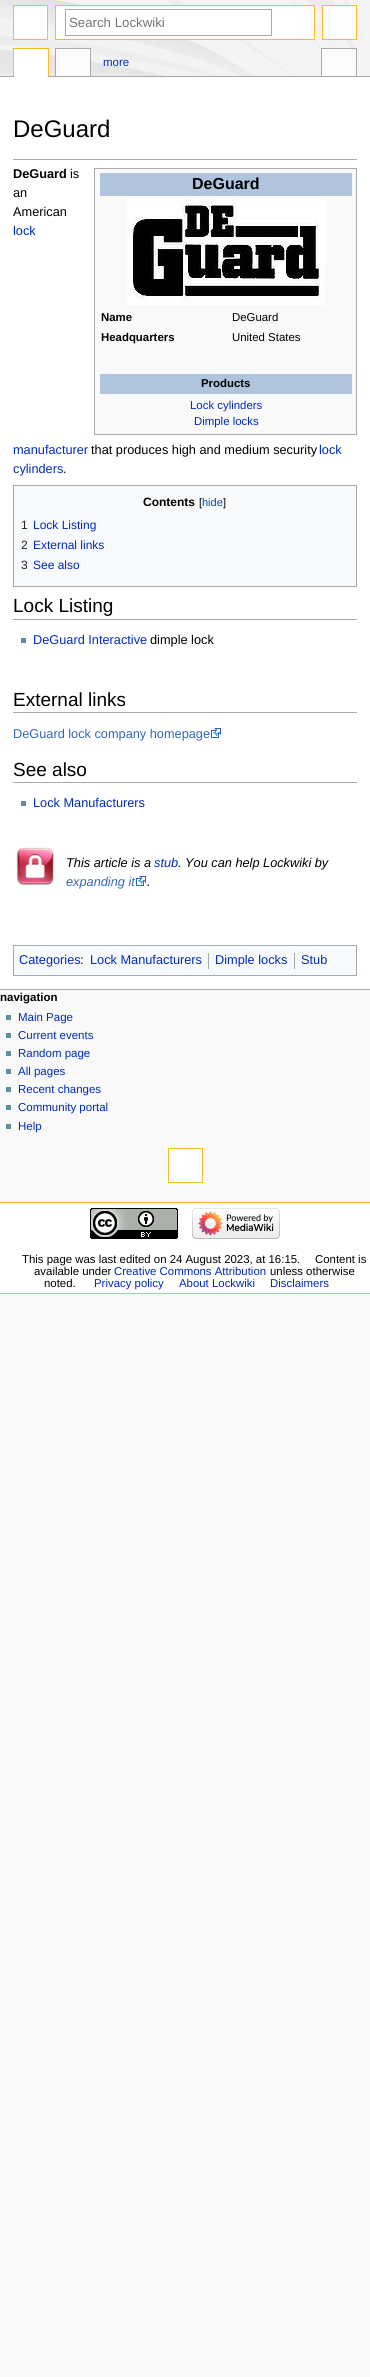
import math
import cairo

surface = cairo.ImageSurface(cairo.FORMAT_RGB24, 370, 2377)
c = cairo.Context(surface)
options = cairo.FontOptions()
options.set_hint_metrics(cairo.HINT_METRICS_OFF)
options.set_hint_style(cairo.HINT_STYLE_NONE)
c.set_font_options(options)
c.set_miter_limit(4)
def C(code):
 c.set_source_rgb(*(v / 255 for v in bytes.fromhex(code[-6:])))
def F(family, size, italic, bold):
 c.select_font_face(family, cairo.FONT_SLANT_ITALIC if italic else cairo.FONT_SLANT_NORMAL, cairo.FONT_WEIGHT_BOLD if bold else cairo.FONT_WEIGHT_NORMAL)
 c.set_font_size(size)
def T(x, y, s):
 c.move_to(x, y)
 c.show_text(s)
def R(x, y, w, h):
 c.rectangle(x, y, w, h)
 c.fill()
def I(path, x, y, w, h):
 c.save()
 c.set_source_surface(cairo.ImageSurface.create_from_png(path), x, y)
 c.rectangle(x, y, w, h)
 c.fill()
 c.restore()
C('f9f9f9')
c.paint()
I('1.png',0,0,370,76)
C('ffffff')
c.rectangle(13.5,5.5,34,34)
c.fill_preserve()
C('fabd23')
c.set_line_width(1)
c.stroke()
C('ffffff')
c.rectangle(322.5,5.5,34,34)
c.fill_preserve()
C('fabd23')
c.stroke()
C('ffffff')
c.rectangle(55.5,5.5,259,34)
c.fill_preserve()
C('fabd23')
c.stroke()
c.rectangle(65.5,9.5,206,26)
C('aaaaaa')
c.stroke()
F('Liberation Sans',13.25,0,0)
C('757575')
T(69,27,'Search Lockwiki')
F('Liberation Sans',11.5,0,1)
C('000000')
T(0,1001,'navigation')
C('638c9c')
R(6,1015,5,5)
F('Liberation Sans',11.5,0,0)
C('002bb8')
T(18,1021,'Main Page')
C('638c9c')
R(6,1033,5,5)
C('002bb8')
T(18,1039,'Current events')
C('638c9c')
R(6,1051,5,5)
C('002bb8')
T(18,1057,'Random page')
C('638c9c')
R(6,1069,5,5)
C('002bb8')
T(18,1075,'All pages')
C('638c9c')
R(6,1087,5,5)
C('002bb8')
T(18,1093,'Recent changes')
C('638c9c')
R(6,1105,5,5)
C('002bb8')
T(18,1111,'Community portal')
C('638c9c')
R(6,1124,5,5)
C('002bb8')
T(18,1130,'Help')
C('fabd23')
R(13,48,36,1)
R(48,48,1,29)
R(13,48,1,29)
C('aaaaaa')
R(55,48,36,1)
R(90,48,1,29)
R(55,48,1,29)
R(321,48,36,1)
R(356,48,1,29)
R(321,48,1,29)
R(0,76,370,1)
C('ffffff')
R(14,49,34,28)
C('fbfbfb')
R(56,49,34,27)
C('002bb8')
T(103,66,'more')
C('fbfbfb')
R(322,49,34,27)
C('ffffff')
c.rectangle(168.5,1148.5,34,34)
c.fill_preserve()
C('fabd23')
c.stroke()
C('ffffff')
R(0,77,370,912)
C('aaaaaa')
R(0,989,370,1)
F('Liberation Sans',24,0,0)
C('000000')
T(13,137,'DeGuard')
C('a2a9b1')
R(13,159,344,1)
F('Liberation Sans',12.75,0,1)
C('000000')
T(13,178,'DeGuard')
F('Liberation Sans',12.75,0,0)
T(70,178,'is')
T(13,197,'an')
T(13,216,'American')
C('002bb8')
T(13,235,'lock')
T(13,454,'manufacturer')
C('000000')
T(91,454,'that produces high and medium security')
C('002bb8')
T(319,454,'lock')
T(13,473,'cylinders')
C('000000')
T(63,473,'.')
C('f9f9f9')
c.rectangle(94.5,168.5,262,266)
c.fill_preserve()
C('aaaaaa')
c.stroke()
C('b0c4de')
R(100,173,252,23)
F('Liberation Sans',16,0,1)
C('000000')
T(192,189,'DeGuard')
I('2.png',126,199,200,106)
F('Liberation Sans',11.4,0,1)
T(101,321,'Name')
F('Liberation Sans',11.4,0,0)
T(232,321,'DeGuard')
F('Liberation Sans',11.4,0,1)
T(101,341,'Headquarters')
F('Liberation Sans',11.4,0,0)
T(232,341,'United States')
C('b0c4de')
R(100,374,252,20)
F('Liberation Sans',11.4,0,1)
C('000000')
T(201,387,'Products')
F('Liberation Sans',11.4,0,0)
C('002bb8')
T(190,409,'Lock cylinders')
T(194,425,'Dimple locks')
C('f8f9fa')
c.rectangle(13.5,485.5,343,101)
c.fill_preserve()
C('a2a9b1')
c.stroke()
F('Liberation Sans',12,0,1)
C('000000')
T(143,506,'Contents')
F('Liberation Sans',11,0,0)
T(199,506,'[')
C('0645ad')
T(202,506,'hide')
C('000000')
T(223,506,']')
F('Liberation Sans',12,0,0)
C('202122')
T(21,529,'1')
C('002bb8')
T(33,529,'Lock Listing')
C('202122')
T(21,549,'2')
C('002bb8')
T(33,549,'External links')
C('202122')
T(21,569,'3')
C('002bb8')
T(33,569,'See also')
C('a2a9b1')
R(13,619,344,1)
F('Liberation Sans',19,0,0)
C('000000')
T(13,612,'Lock Listing')
C('638c9c')
R(21,638,5,5)
F('Liberation Sans',12.75,0,0)
C('002bb8')
T(33,644,'DeGuard Interactive')
C('000000')
T(150,644,'dimple lock')
C('a2a9b1')
R(13,712,344,1)
F('Liberation Sans',19,0,0)
C('000000')
T(13,706,'External links')
F('Liberation Sans',12.75,0,0)
C('3366bb')
T(13,738,'DeGuard lock company homepage')
I('3.png',211,728,10,10)
C('a2a9b1')
R(13,782,344,1)
F('Liberation Sans',19,0,0)
C('000000')
T(13,776,'See also')
C('638c9c')
R(21,801,5,5)
F('Liberation Sans',12.75,0,0)
C('002bb8')
T(33,807,'Lock Manufacturers')
I('4.png',16,847,38,39)
F('Liberation Sans',12.75,1,0)
C('000000')
T(66,867,'This article is a')
C('002bb8')
T(154,867,'stub')
C('000000')
T(178,867,'. You can help Lockwiki by')
C('3366bb')
T(66,886,'expanding it')
I('3.png',136,876,10,10)
C('000000')
T(147,886,'.')
C('f8f9fa')
c.rectangle(13.5,945.5,343,30)
c.fill_preserve()
C('a2a9b1')
c.stroke()
F('Liberation Sans',12.75,0,0)
C('002bb8')
T(19,964,'Categories')
C('000000')
T(80,964,':')
C('002bb8')
T(90,964,'Lock Manufacturers')
C('a2a9b1')
R(208,953,1,16)
C('002bb8')
T(215,964,'Dimple locks')
C('a2a9b1')
R(294,953,1,16)
C('002bb8')
T(301,964,'Stub')
C('ffffff')
R(0,1203,370,90)
C('fabd23')
R(0,1202,370,1)
R(0,1293,370,1)
I('5.png',90,1208,88,31)
I('6.png',192,1208,88,31)
F('Liberation Sans',11.4,0,0)
C('000000')
T(22,1263,'This page was last edited on 24 August 2023, at 16:15.')
T(315,1263,'Content is')
T(34,1275,'available under')
C('002bb8')
T(114,1275,'Creative Commons Attribution')
C('000000')
T(270,1275,'unless otherwise')
T(44,1287,'noted.')
C('002bb8')
T(94,1287,'Privacy policy')
T(179,1287,'About Lockwiki')
T(270,1287,'Disclaimers')
surface.write_to_png('o.png')
